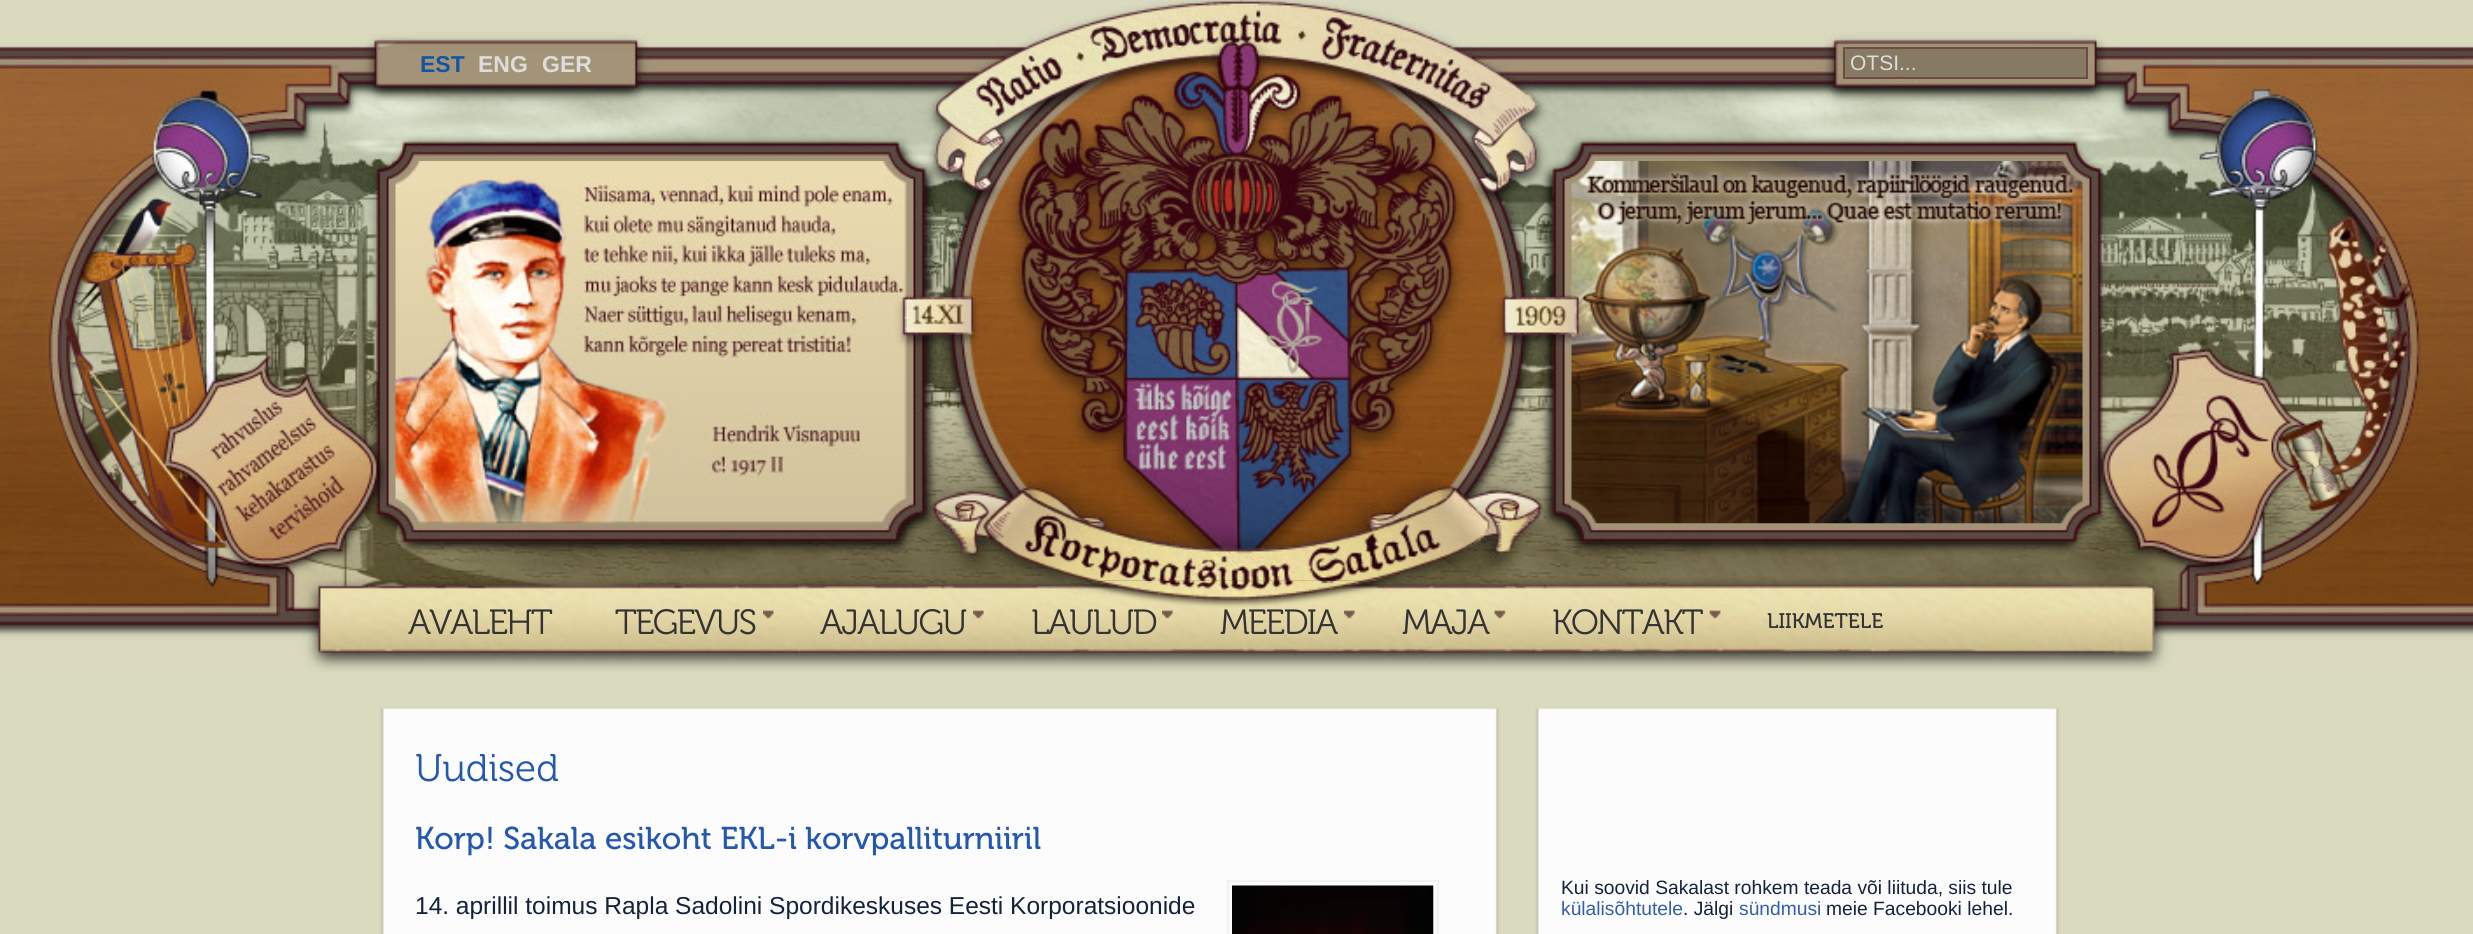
import math
import cairo

surface = cairo.ImageSurface(cairo.FORMAT_RGB24, 2473, 934)
c = cairo.Context(surface)
options = cairo.FontOptions()
options.set_hint_metrics(cairo.HINT_METRICS_OFF)
options.set_hint_style(cairo.HINT_STYLE_NONE)
c.set_font_options(options)
c.set_miter_limit(4)
def C(code):
 c.set_source_rgb(*(v / 255 for v in bytes.fromhex(code[-6:])))
def F(family, size, italic, bold):
 c.select_font_face(family, cairo.FONT_SLANT_ITALIC if italic else cairo.FONT_SLANT_NORMAL, cairo.FONT_WEIGHT_BOLD if bold else cairo.FONT_WEIGHT_NORMAL)
 c.set_font_size(size)
def T(x, y, s):
 c.move_to(x, y)
 c.show_text(s)
def L(x, y, s, letter, word):
 c.move_to(x, y)
 for ch in s:
  c.show_text(ch)
  c.rel_move_to(letter + word * (ch == ' '), 0)
def I(path, x, y, w, h):
 c.save()
 c.set_source_surface(cairo.ImageSurface.create_from_png(path), x, y)
 c.rectangle(x, y, w, h)
 c.fill()
 c.restore()
C('dadabf')
c.paint()
I('1.png',0,0,2473,672)
F('Liberation Sans',23,0,1)
C('1355a5')
T(420,72,'EST')
C('dddddd')
T(478,72,'ENG')
T(542,72,'GER')
C('877a63')
c.rectangle(1844,48,243,30)
c.fill_preserve()
C('6f4b45')
c.stroke()
F('Liberation Sans',21,0,0)
C('dddddd')
T(1850,70,'OTSI...')
F('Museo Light',35,0,0)
C('333333')
L(408,634,'AVALEHT',-1.75,0)
I('2.png',763,610,11,9)
L(615,634,'TEGEVUS',-1.75,0)
I('3.png',973,610,11,9)
L(820,634,'AJALUGU',-1.75,0)
I('4.png',1162,610,11,9)
L(1031,634,'LAULUD',-1.75,0)
I('5.png',1344,610,11,9)
L(1220,634,'MEEDIA',-1.75,0)
I('6.png',1494,610,12,9)
L(1402,634,'MAJA',-1.75,0)
I('7.png',1709,610,12,9)
L(1552,634,'KONTAKT',-1.75,0)
F('Museo',21,0,0)
T(1767,628,'LIIKMETELE')
I('8.png',395,161,512,363)
I('9.png',1571,161,512,363)
I('10.png',1088,581,288,27)
I('11.png',380,708,1120,226)
F('Museo Light',38.5,0,0)
C('2358ae')
T(415,781,'Uudised')
F('Museo',31.5,0,0)
T(415,849,'Korp! Sakala esikoht EKL-i korvpalliturniiril')
F('Liberation Sans',24.5,0,0)
C('13223b')
T(415,914,'14. aprillil toimus Rapla Sadolini Spordikeskuses Eesti Korporatsioonide')
c.rectangle(1228,881,210,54)
C('f1f1f1')
c.stroke()
I('12.png',1232,885,202,49)
I('13.png',1535,708,525,226)
F('Liberation Sans',19.25,0,0)
C('13223b')
T(1561,894,'Kui soovid Sakalast rohkem teada või liituda, siis tule')
C('355fa5')
T(1561,915,'külalisõhtutele')
C('13223b')
T(1683,915,'. Jälgi')
C('355fa5')
T(1739,915,'sündmusi')
C('13223b')
T(1826,915,'meie Facebooki lehel.')
surface.write_to_png('o.png')
